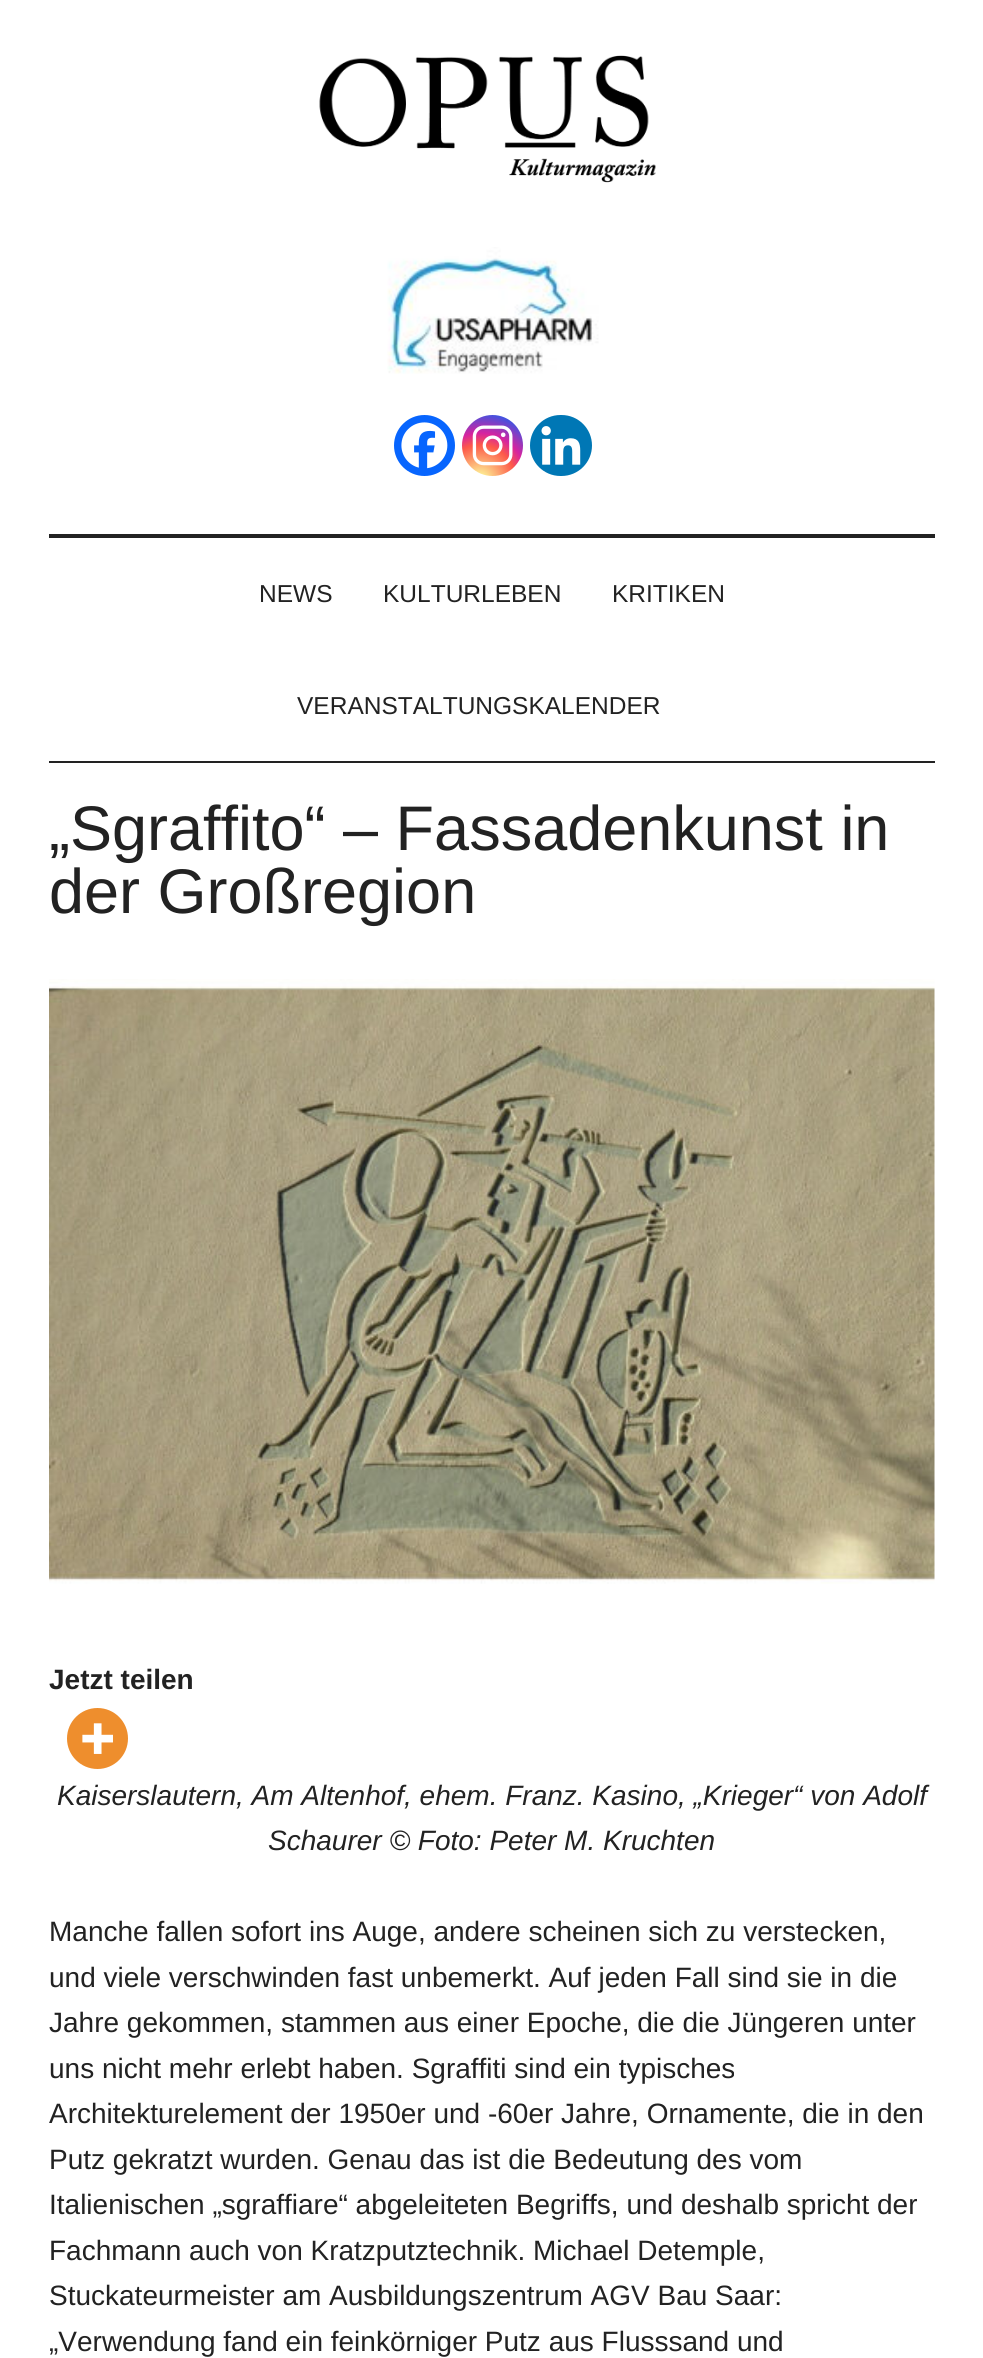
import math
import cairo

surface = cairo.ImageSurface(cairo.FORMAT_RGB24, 983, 2358)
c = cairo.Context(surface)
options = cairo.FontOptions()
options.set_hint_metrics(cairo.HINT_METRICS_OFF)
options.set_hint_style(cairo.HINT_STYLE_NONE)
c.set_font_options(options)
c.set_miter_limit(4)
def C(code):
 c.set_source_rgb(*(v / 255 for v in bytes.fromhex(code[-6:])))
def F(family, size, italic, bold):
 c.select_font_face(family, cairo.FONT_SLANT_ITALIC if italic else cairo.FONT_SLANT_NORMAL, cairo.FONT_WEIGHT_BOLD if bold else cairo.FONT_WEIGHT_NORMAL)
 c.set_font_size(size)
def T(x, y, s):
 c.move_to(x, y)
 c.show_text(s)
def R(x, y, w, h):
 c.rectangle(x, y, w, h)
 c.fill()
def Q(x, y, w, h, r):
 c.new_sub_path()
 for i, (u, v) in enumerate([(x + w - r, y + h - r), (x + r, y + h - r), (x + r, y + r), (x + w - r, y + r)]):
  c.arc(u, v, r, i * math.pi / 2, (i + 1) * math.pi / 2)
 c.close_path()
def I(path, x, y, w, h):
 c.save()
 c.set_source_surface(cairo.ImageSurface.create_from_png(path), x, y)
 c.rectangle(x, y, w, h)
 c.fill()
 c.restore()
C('ffffff')
c.paint()
C('222222')
R(49,534,886,4)
I('1.png',319,55,337,128)
I('2.png',387,247,212,127)
C('0765fe')
c.arc(424.5,445.5,30.5,0,2 * math.pi)
c.fill()
I('3.png',401,422,47,47)
gradient = cairo.RadialGradient(480,480,0,480,480,78)
gradient.add_color_stop_rgba(0,0.992,0.957,0.592,1)
gradient.add_color_stop_rgba(.05,0.992,0.957,0.592,1)
gradient.add_color_stop_rgba(.45,0.992,0.349,0.286,1)
gradient.add_color_stop_rgba(.6,0.839,0.141,0.624,1)
gradient.add_color_stop_rgba(.9,0.157,0.353,0.922,1)
c.set_source(gradient)
c.arc(492.5,445.5,30.5,0,2 * math.pi)
c.fill()
I('4.png',472,425,41,41)
C('0077b5')
Q(530,415,62,61,30.5)
c.fill()
I('5.png',541,426,40,39)
C('222222')
R(49,761,886,2)
F('Liberation Sans',24.5,0,0)
T(259,602,'NEWS')
T(383,602,'KULTURLEBEN')
T(612,602,'KRITIKEN')
T(297,714,'VERANSTALTUNGSKALENDER')
F('Liberation Sans',63,0,0)
T(49,850,'„Sgraffito“ – Fassadenkunst in')
T(49,913,'der Großregion')
I('6.png',49,979,886,605)
F('Liberation Sans',28,0,1)
T(49,1689,'Jetzt teilen')
C('ee8e2d')
c.new_path()
c.arc(97.5,1738.5,30.5,0,2 * math.pi)
c.fill()
I('7.png',82,1723,31,31)
F('Liberation Sans',28,1,0)
C('222222')
T(57,1805,'Kaiserslautern, Am Altenhof, ehem. Franz. Kasino, „Krieger“ von Adolf')
T(268,1850,'Schaurer © Foto: Peter M. Kruchten')
F('Liberation Sans',28,0,0)
T(49,1941,'Manche fallen sofort ins Auge, andere scheinen sich zu verstecken,')
T(49,1987,'und viele verschwinden fast unbemerkt. Auf jeden Fall sind sie in die')
T(49,2032,'Jahre gekommen, stammen aus einer Epoche, die die Jüngeren unter')
T(49,2078,'uns nicht mehr erlebt haben. Sgraffiti sind ein typisches')
T(49,2123,'Architekturelement der 1950er und -60er Jahre, Ornamente, die in den')
T(49,2169,'Putz gekratzt wurden. Genau das ist die Bedeutung des vom')
T(49,2214,'Italienischen „sgraffiare“ abgeleiteten Begriffs, und deshalb spricht der')
T(49,2260,'Fachmann auch von Kratzputztechnik. Michael Detemple,')
T(49,2305,'Stuckateurmeister am Ausbildungszentrum AGV Bau Saar:')
T(49,2351,'„Verwendung fand ein feinkörniger Putz aus Flusssand und')
surface.write_to_png('o.png')
